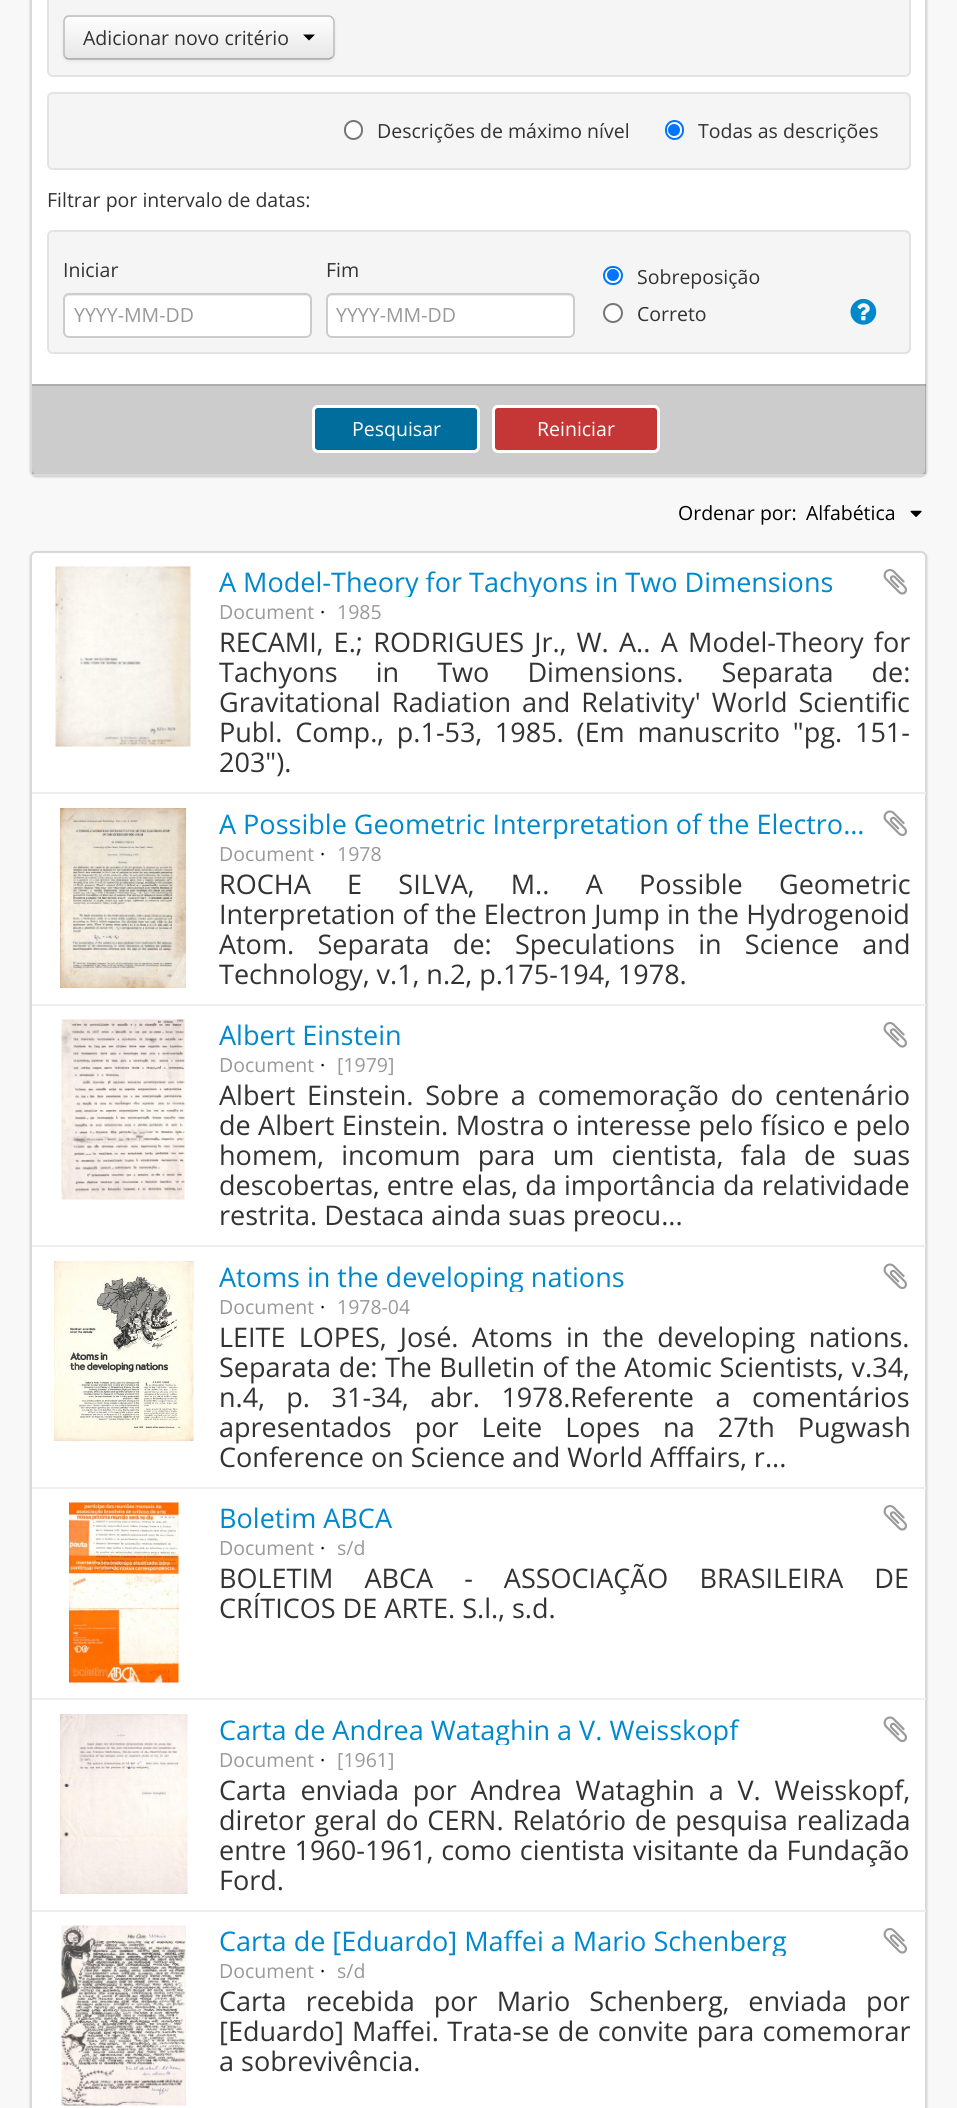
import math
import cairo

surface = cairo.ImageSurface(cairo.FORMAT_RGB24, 957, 2108)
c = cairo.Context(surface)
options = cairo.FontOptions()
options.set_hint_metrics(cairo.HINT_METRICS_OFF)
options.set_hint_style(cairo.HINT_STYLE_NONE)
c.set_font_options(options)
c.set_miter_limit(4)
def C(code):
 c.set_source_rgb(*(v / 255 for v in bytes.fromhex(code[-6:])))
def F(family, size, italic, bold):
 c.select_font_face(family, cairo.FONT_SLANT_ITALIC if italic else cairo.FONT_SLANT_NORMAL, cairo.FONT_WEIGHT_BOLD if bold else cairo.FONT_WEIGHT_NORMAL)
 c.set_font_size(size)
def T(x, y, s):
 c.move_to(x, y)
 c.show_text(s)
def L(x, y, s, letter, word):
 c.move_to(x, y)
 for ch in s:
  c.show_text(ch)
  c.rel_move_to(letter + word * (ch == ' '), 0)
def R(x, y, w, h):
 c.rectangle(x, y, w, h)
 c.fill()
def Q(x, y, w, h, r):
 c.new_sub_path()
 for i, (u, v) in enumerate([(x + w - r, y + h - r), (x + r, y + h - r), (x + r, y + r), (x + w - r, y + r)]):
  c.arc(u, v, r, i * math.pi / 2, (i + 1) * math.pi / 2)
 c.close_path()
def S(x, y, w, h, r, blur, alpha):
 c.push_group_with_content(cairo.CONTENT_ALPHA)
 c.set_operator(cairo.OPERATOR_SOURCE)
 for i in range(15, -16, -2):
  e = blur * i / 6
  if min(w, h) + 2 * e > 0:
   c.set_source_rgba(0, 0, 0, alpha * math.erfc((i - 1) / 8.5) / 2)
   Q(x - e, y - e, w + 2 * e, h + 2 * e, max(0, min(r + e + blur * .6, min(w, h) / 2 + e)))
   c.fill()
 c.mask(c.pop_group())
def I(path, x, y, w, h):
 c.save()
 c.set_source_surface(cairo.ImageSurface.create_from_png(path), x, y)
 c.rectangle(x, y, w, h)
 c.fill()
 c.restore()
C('f8f8f8')
c.paint()
C('000000')
S(30,-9,897,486,6,1,.2)
C('ffffff')
Q(31,-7,895,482,5)
c.fill_preserve()
C('d9d9d9')
c.stroke()
C('f5f5f5')
Q(48,-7,862,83,5)
c.fill_preserve()
C('e3e3e3')
c.stroke()
C('000000')
S(63,17,272,45,6,1.5,.05)
C('f5f5f5')
Q(63,15,272,45,6)
c.fill()
c.save()
Q(63,15,272,45,6)
c.clip()
gradient = cairo.LinearGradient(199,16,199,59)
gradient.add_color_stop_rgba(0,1,1,1,1)
gradient.add_color_stop_rgba(1,0.902,0.902,0.902,1)
c.set_source(gradient)
R(63,17,272,42)
c.restore()
c.new_path()
c.move_to(332,57.5)
c.line_to(329,59)
c.line_to(69,59)
c.curve_to(67.5,59,66.5,58.5,65.5,57.5)
C('a2a2a2')
c.set_line_width(1.5)
c.stroke()
c.new_path()
c.move_to(65.5,57.5)
c.curve_to(64.5,56.5,64,55.5,64,54)
c.line_to(64,21)
c.curve_to(64,19.5,64.5,18.5,65.5,17.5)
c.curve_to(66.5,16.5,67.5,16,69,16)
c.line_to(328.5,16)
c.curve_to(330,16,331,16.5,332,17.5)
c.curve_to(333,18.5,334,19.5,334,21)
c.line_to(334,54)
c.curve_to(334,55.5,333,56.5,332,57.5)
C('bbbbbb')
c.stroke()
F('Open Sans',19.5,0,0)
C('333333')
T(83,45,'Adicionar novo critério')
C('000000')
c.new_path()
c.move_to(303,34.5)
c.line_to(315,34.5)
c.line_to(309,40.5)
c.close_path()
c.fill()
C('f5f5f5')
Q(47,92,864,78,6)
c.fill()
C('e9e9e9')
c.new_path()
c.move_to(52,94)
c.line_to(904,94)
c.curve_to(907,94,909,97,909,99)
c.line_to(909,98)
c.curve_to(909,95,907,93,904,93)
c.line_to(53,93)
c.curve_to(50,93,48,95,48,98)
c.line_to(48,99)
c.curve_to(48,97,50,94,52,94)
c.close_path()
c.fill()
Q(48,93,862,76,5)
C('e3e3e3')
c.set_line_width(2)
c.stroke()
C('ffffff')
Q(345,121,17,18,8.5)
c.fill_preserve()
C('767676')
c.stroke()
C('333333')
T(377,138,'Descrições de máximo nível')
C('ffffff')
Q(666,121,17,18,8.5)
c.fill_preserve()
C('0075ff')
c.stroke()
c.arc(674,130,6,0,2 * math.pi)
c.fill()
C('333333')
T(698,138,'Todas as descrições')
T(47,207,'Filtrar por intervalo de datas:')
C('f5f5f5')
Q(47,230,864,124,6)
c.fill()
C('e9e9e9')
c.new_path()
c.move_to(52,232)
c.line_to(904,232)
c.curve_to(907,232,909,235,909,237)
c.line_to(909,236)
c.curve_to(909,233,907,231,904,231)
c.line_to(53,231)
c.curve_to(50,231,48,233,48,236)
c.line_to(48,237)
c.curve_to(48,235,50,232,52,232)
c.close_path()
c.fill()
Q(48,231,862,122,5)
C('e3e3e3')
c.stroke()
C('333333')
T(63,277,'Iniciar')
C('ffffff')
Q(63,293,249,45,6)
c.fill()
C('ececec')
c.new_path()
c.move_to(69,296)
c.line_to(306,296)
c.curve_to(308,296,310,298,310,300)
c.line_to(310,334)
c.curve_to(311,333,311,332,311,331)
c.line_to(311,299)
c.curve_to(311,296,309,294,306,294)
c.line_to(70,294)
c.curve_to(68,294,66,296,65,298)
c.curve_to(66,297,68,296,69,296)
c.close_path()
c.fill()
Q(64,294,247,43,5)
C('cccccc')
c.stroke()
C('999999')
T(74,322,'YYYY-MM-DD')
C('333333')
T(326,277,'Fim')
C('ffffff')
Q(326,293,249,45,6)
c.fill()
C('ececec')
c.new_path()
c.move_to(332,296)
c.line_to(568,296)
c.curve_to(571,296,573,298,573,300)
c.line_to(573,299)
c.curve_to(573,296,571,294,568,294)
c.line_to(332,294)
c.curve_to(329,294,327,296,327,299)
c.line_to(327,300)
c.curve_to(327,298,329,296,332,296)
c.close_path()
c.fill()
Q(327,294,247,43,5)
C('cccccc')
c.stroke()
C('999999')
T(336,322,'YYYY-MM-DD')
C('ffffff')
Q(604,267,18,17,8.5)
c.fill_preserve()
C('0075ff')
c.stroke()
c.arc(613,275,6,0,2 * math.pi)
c.fill()
C('333333')
T(637,284,'Sobreposição')
C('ffffff')
c.new_path()
c.arc(613,313,9,0,2 * math.pi)
c.fill_preserve()
C('767676')
c.stroke()
C('333333')
T(637,321,'Correto')
I('1.png',850,298,27,27)
c.set_source_rgba(0,0,0,0.2)
R(32,384,894,90)
c.set_source_rgba(0,0,0,0.15)
R(32,384,894,2)
C('006d9c')
Q(313.5,406.5,165,45,4.5)
c.fill_preserve()
C('ffffff')
c.set_line_width(3)
c.stroke()
T(352,436,'Pesquisar')
C('c53636')
Q(493.5,406.5,165,45,4.5)
c.fill_preserve()
C('ffffff')
c.stroke()
T(537,436,'Reiniciar')
C('000000')
T(678,520,'Ordenar por:')
T(806,520,'Alfabética')
I('2.png',910,510,12,7)
C('000000')
S(30,552,897,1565,6,1,.2)
C('ffffff')
Q(31,552,895,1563,5)
c.fill_preserve()
C('d9d9d9')
c.set_line_width(2)
c.stroke()
C('eeeeee')
R(32,792,894,2)
I('3.png',55,566,136,181)
c.save()
c.rectangle(219,567,654,30)
c.clip()
F('Open Sans',27,0,0)
C('0088cc')
T(219,592,'A Model-Theory for Tachyons in Two Dimensions')
c.restore()
I('4.png',883,569,24,26)
C('999999')
T(219,619,'Document')
C('000000')
T(320,619,'·')
C('999999')
T(337,619,'1985')
F('Open Sans',27,0,0)
C('333333')
L(219,652,'RECAMI, E.; RODRIGUES Jr., W. A.. A Model-Theory for',0,3.25)
L(219,682,'Tachyons in Two Dimensions. Separata de:',0,31)
L(219,712,'Gravitational Radiation and Relativity\' World Scientific',0,4)
L(219,742,'Publ. Comp., p.1-53, 1985. (Em manuscrito "pg. 151-',0,5.75)
T(219,772,'203").')
C('eeeeee')
R(32,1004,894,2)
I('5.png',60,808,126,180)
c.save()
c.rectangle(219,809,654,30)
c.clip()
C('0088cc')
T(219,834,'A Possible Geometric Interpretation of the Electro…')
c.restore()
I('6.png',883,810,24,27)
F('Open Sans',19.5,0,0)
C('999999')
T(219,861,'Document')
C('000000')
T(320,861,'·')
C('999999')
T(337,861,'1978')
F('Open Sans',27,0,0)
C('333333')
L(219,894,'ROCHA E SILVA, M.. A Possible Geometric',0,29.25)
L(219,924,'Interpretation of the Electron Jump in the Hydrogenoid',0,.25)
L(219,954,'Atom. Separata de: Speculations in Science and',0,16.25)
T(219,984,'Technology, v.1, n.2, p.175-194, 1978.')
C('eeeeee')
R(32,1245,894,2)
I('7.png',61,1019,124,181)
C('0088cc')
T(219,1045,'Albert Einstein')
I('4.png',883,1022,24,26)
F('Open Sans',19.5,0,0)
C('999999')
T(219,1072,'Document')
C('000000')
T(320,1072,'·')
C('999999')
T(337,1072,'[1979]')
F('Open Sans',27,0,0)
C('333333')
L(219,1105,'Albert Einstein. Sobre a comemoração do centenário',0,4.75)
L(219,1135,'de Albert Einstein. Mostra o interesse pelo físico e pelo',0,.4)
L(219,1165,'homem, incomum para um cientista, fala de suas',0,10.25)
L(219,1195,'descobertas, entre elas, da importância da relatividade',0,.25)
T(219,1225,'restrita. Destaca ainda suas preocu...')
C('eeeeee')
R(32,1487,894,2)
I('8.png',54,1261,140,180)
c.save()
c.rectangle(219,1262,654,30)
c.clip()
C('0088cc')
T(219,1287,'Atoms in the developing nations')
c.restore()
I('6.png',883,1263,24,27)
F('Open Sans',19.5,0,0)
C('999999')
T(219,1314,'Document')
C('000000')
T(320,1314,'·')
C('999999')
T(337,1314,'1978-04')
F('Open Sans',27,0,0)
C('333333')
L(219,1347,'LEITE LOPES, José. Atoms in the developing nations.',0,6.25)
L(219,1377,'Separata de: The Bulletin of the Atomic Scientists, v.34,',0,.5)
L(219,1407,'n.4, p. 31-34, abr. 1978.Referente a comentários',0,14.5)
L(219,1437,'apresentados por Leite Lopes na 27th Pugwash',0,16)
T(219,1467,'Conference on Science and World Afffairs, r...')
C('eeeeee')
R(32,1698,894,2)
I('9.png',69,1502,110,181)
C('0088cc')
T(219,1528,'Boletim ABCA')
I('4.png',883,1505,24,26)
F('Open Sans',19.5,0,0)
C('999999')
T(219,1555,'Document')
C('000000')
T(320,1555,'·')
C('999999')
T(337,1555,'s/d')
F('Open Sans',27,0,0)
C('333333')
L(219,1588,'BOLETIM ABCA - ASSOCIAÇÃO BRASILEIRA DE',0,24)
T(219,1618,'CRÍTICOS DE ARTE. S.l., s.d.')
C('eeeeee')
R(32,1910,894,2)
I('10.png',60,1714,128,180)
c.save()
c.rectangle(219,1715,654,30)
c.clip()
C('0088cc')
T(219,1740,'Carta de Andrea Wataghin a V. Weisskopf')
c.restore()
I('6.png',883,1716,24,27)
F('Open Sans',19.5,0,0)
C('999999')
T(219,1767,'Document')
C('000000')
T(320,1767,'·')
C('999999')
T(337,1767,'[1961]')
F('Open Sans',27,0,0)
C('333333')
L(219,1800,'Carta enviada por Andrea Wataghin a V. Weisskopf,',0,6.75)
L(219,1830,'diretor geral do CERN. Relatório de pesquisa realizada',0,1.75)
L(219,1860,'entre 1960-1961, como cientista visitante da Fundação',0,1)
T(219,1890,'Ford.')
I('11.png',61,1925,125,181)
c.save()
c.rectangle(219,1926,654,30)
c.clip()
C('0088cc')
T(219,1951,'Carta de [Eduardo] Maffei a Mario Schenberg')
c.restore()
I('4.png',883,1928,24,26)
F('Open Sans',19.5,0,0)
C('999999')
T(219,1978,'Document')
C('000000')
T(320,1978,'·')
C('999999')
T(337,1978,'s/d')
F('Open Sans',27,0,0)
C('333333')
L(219,2011,'Carta recebida por Mario Schenberg, enviada por',0,12)
L(219,2041,'[Eduardo] Maffei. Trata-se de convite para comemorar',0,1.25)
T(219,2071,'a sobrevivência.')
surface.write_to_png('o.png')
